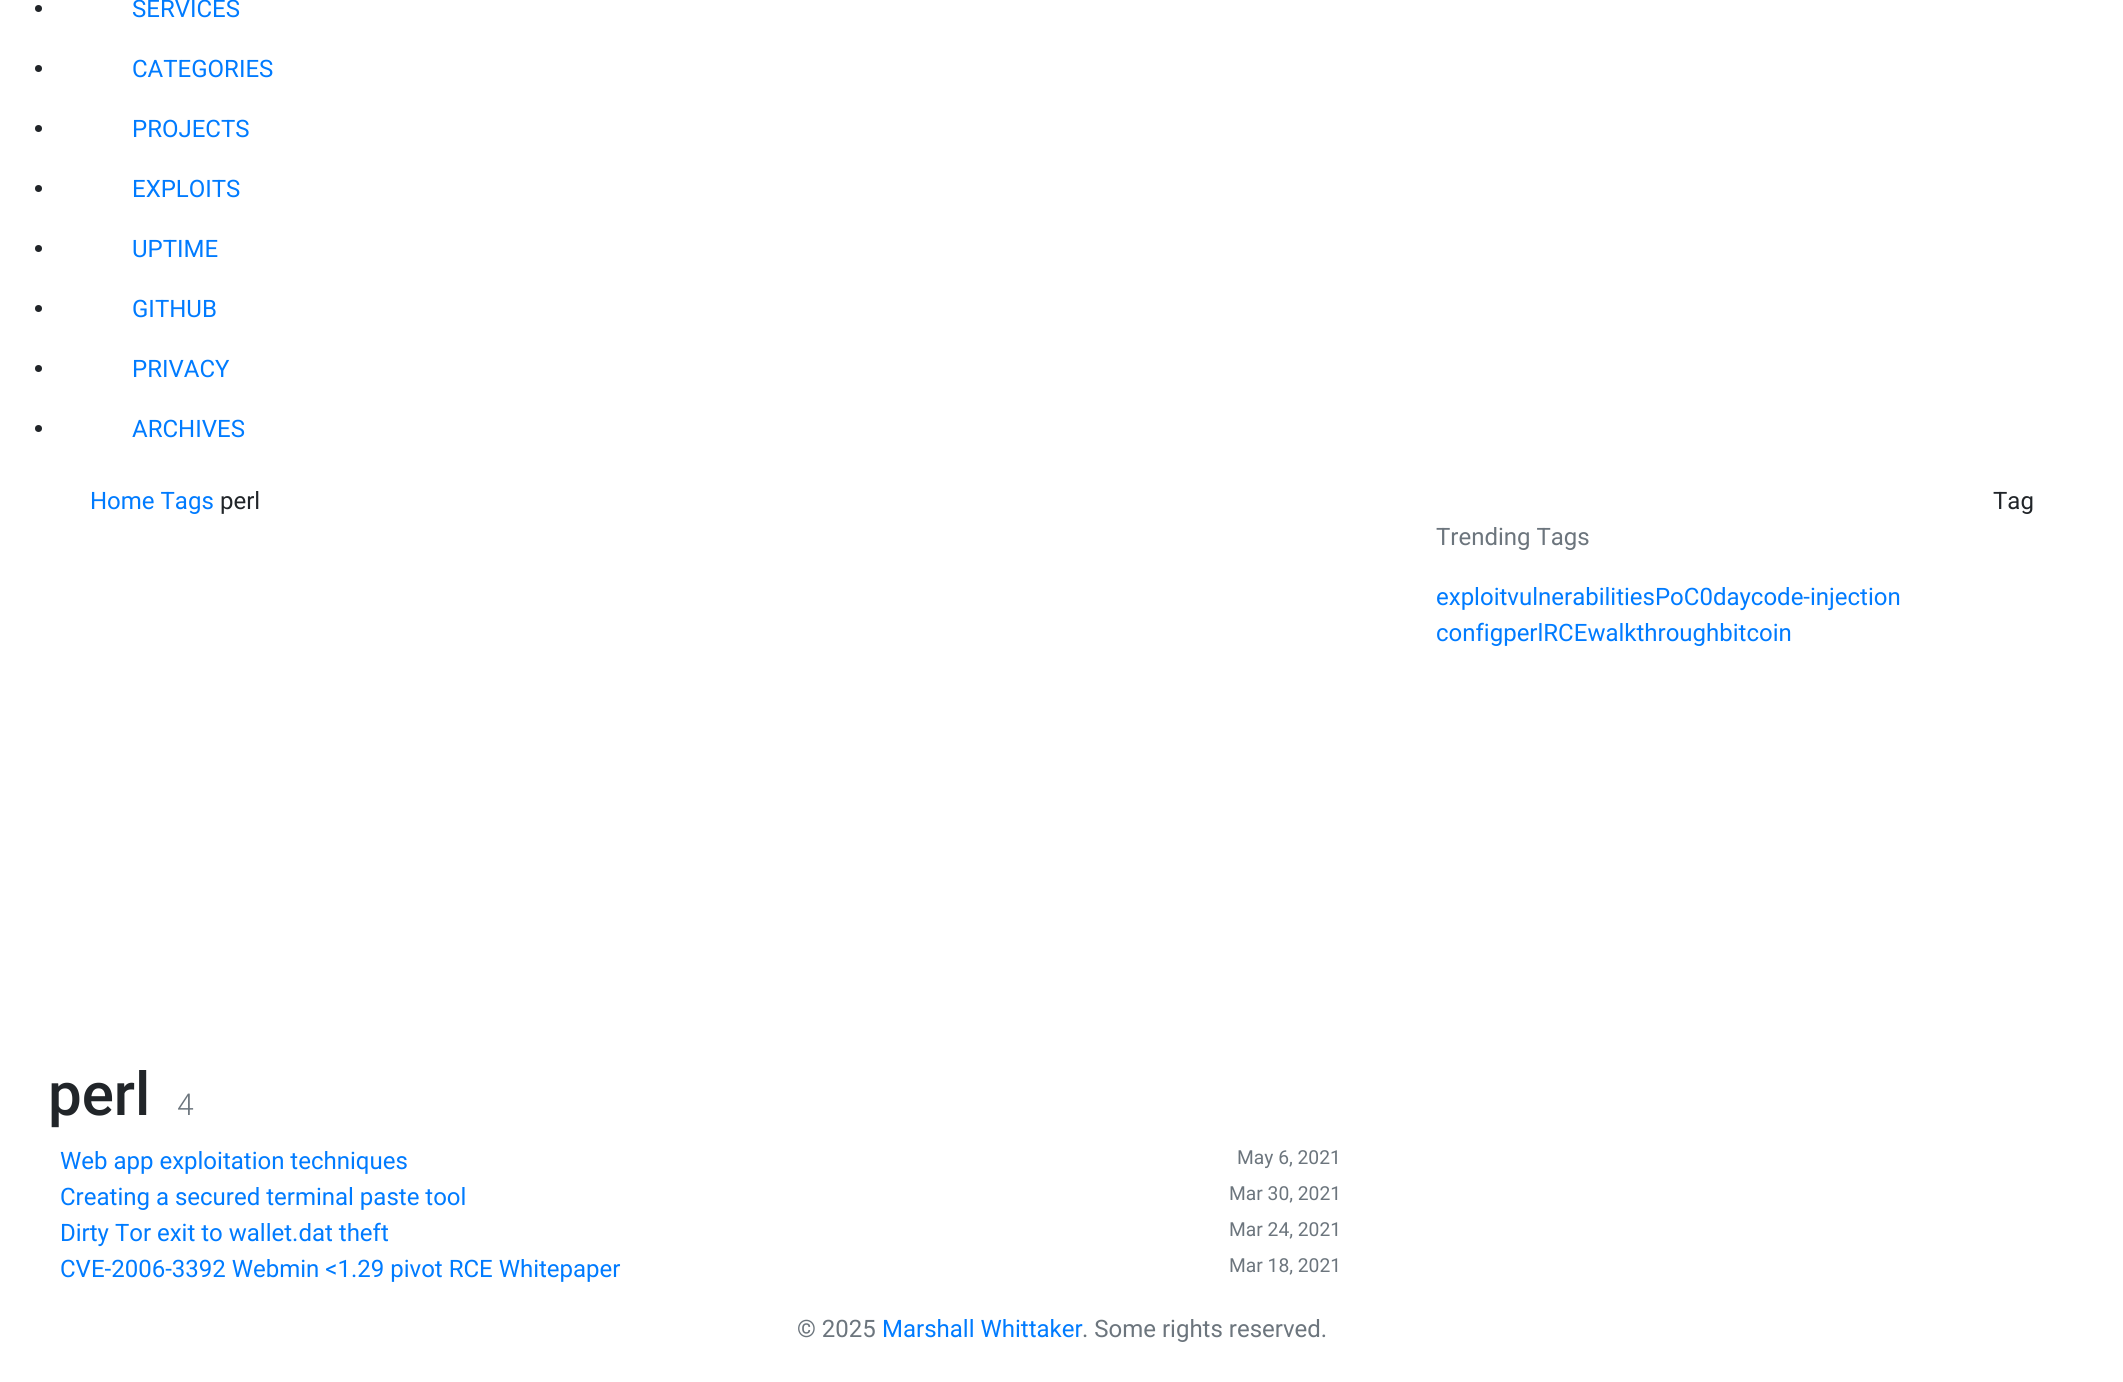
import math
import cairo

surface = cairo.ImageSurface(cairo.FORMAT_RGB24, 2123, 1382)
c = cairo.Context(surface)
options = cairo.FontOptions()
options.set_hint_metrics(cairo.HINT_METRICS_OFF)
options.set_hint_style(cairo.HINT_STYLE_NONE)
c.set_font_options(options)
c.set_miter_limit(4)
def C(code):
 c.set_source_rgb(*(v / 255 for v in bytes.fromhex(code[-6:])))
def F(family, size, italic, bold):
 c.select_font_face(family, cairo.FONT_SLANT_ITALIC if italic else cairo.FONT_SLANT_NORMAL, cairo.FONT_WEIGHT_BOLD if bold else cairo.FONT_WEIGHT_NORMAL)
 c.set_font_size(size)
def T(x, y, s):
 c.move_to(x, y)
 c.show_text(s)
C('ffffff')
c.paint()
C('212529')
c.arc(38.5,8.5,3.5,0,2 * math.pi)
c.fill()
F('Roboto',24,0,0)
C('007bff')
T(132,17,'SERVICES')
C('212529')
c.new_path()
c.arc(38.5,68.5,3.5,0,2 * math.pi)
c.fill()
C('007bff')
T(132,77,'CATEGORIES')
C('212529')
c.new_path()
c.arc(38.5,128.5,3.5,0,2 * math.pi)
c.fill()
C('007bff')
T(132,137,'PROJECTS')
C('212529')
c.new_path()
c.arc(38.5,188.5,3.5,0,2 * math.pi)
c.fill()
C('007bff')
T(132,197,'EXPLOITS')
C('212529')
c.new_path()
c.arc(38.5,248.5,3.5,0,2 * math.pi)
c.fill()
C('007bff')
T(132,257,'UPTIME')
C('212529')
c.new_path()
c.arc(38.5,308.5,3.5,0,2 * math.pi)
c.fill()
C('007bff')
T(132,317,'GITHUB')
C('212529')
c.new_path()
c.arc(38.5,368.5,3.5,0,2 * math.pi)
c.fill()
C('007bff')
T(132,377,'PRIVACY')
C('212529')
c.new_path()
c.arc(38.5,428.5,3.5,0,2 * math.pi)
c.fill()
C('007bff')
T(132,437,'ARCHIVES')
T(90,509,'Home Tags')
C('212529')
T(220,509,'perl')
T(1993,509,'Tag')
C('6c757d')
T(1436,545,'Trending Tags')
C('007bff')
T(1436,605,'exploitvulnerabilitiesPoC0daycode-injection')
T(1436,641,'configperlRCEwalkthroughbitcoin')
F('Roboto Medium',60,0,0)
C('212529')
T(48,1115,'perl')
F('Roboto Light',30,0,0)
C('6c757d')
T(177,1115,'4')
F('Roboto',24,0,0)
C('007bff')
T(60,1169,'Web app exploitation techniques')
F('Roboto',19.25,0,0)
C('6c757d')
T(1237,1164,'May 6, 2021')
F('Roboto',24,0,0)
C('007bff')
T(60,1205,'Creating a secured terminal paste tool')
F('Roboto',19.25,0,0)
C('6c757d')
T(1229,1200,'Mar 30, 2021')
F('Roboto',24,0,0)
C('007bff')
T(60,1241,'Dirty Tor exit to wallet.dat theft')
F('Roboto',19.25,0,0)
C('6c757d')
T(1229,1236,'Mar 24, 2021')
F('Roboto',24,0,0)
C('007bff')
T(60,1277,'CVE-2006-3392 Webmin <1.29 pivot RCE Whitepaper')
F('Roboto',19.25,0,0)
C('6c757d')
T(1229,1272,'Mar 18, 2021')
F('Roboto',24,0,0)
T(797,1337,'© 2025')
C('007bff')
T(882,1337,'Marshall Whittaker')
C('6c757d')
T(1082,1337,'. Some rights reserved.')
surface.write_to_png('o.png')
